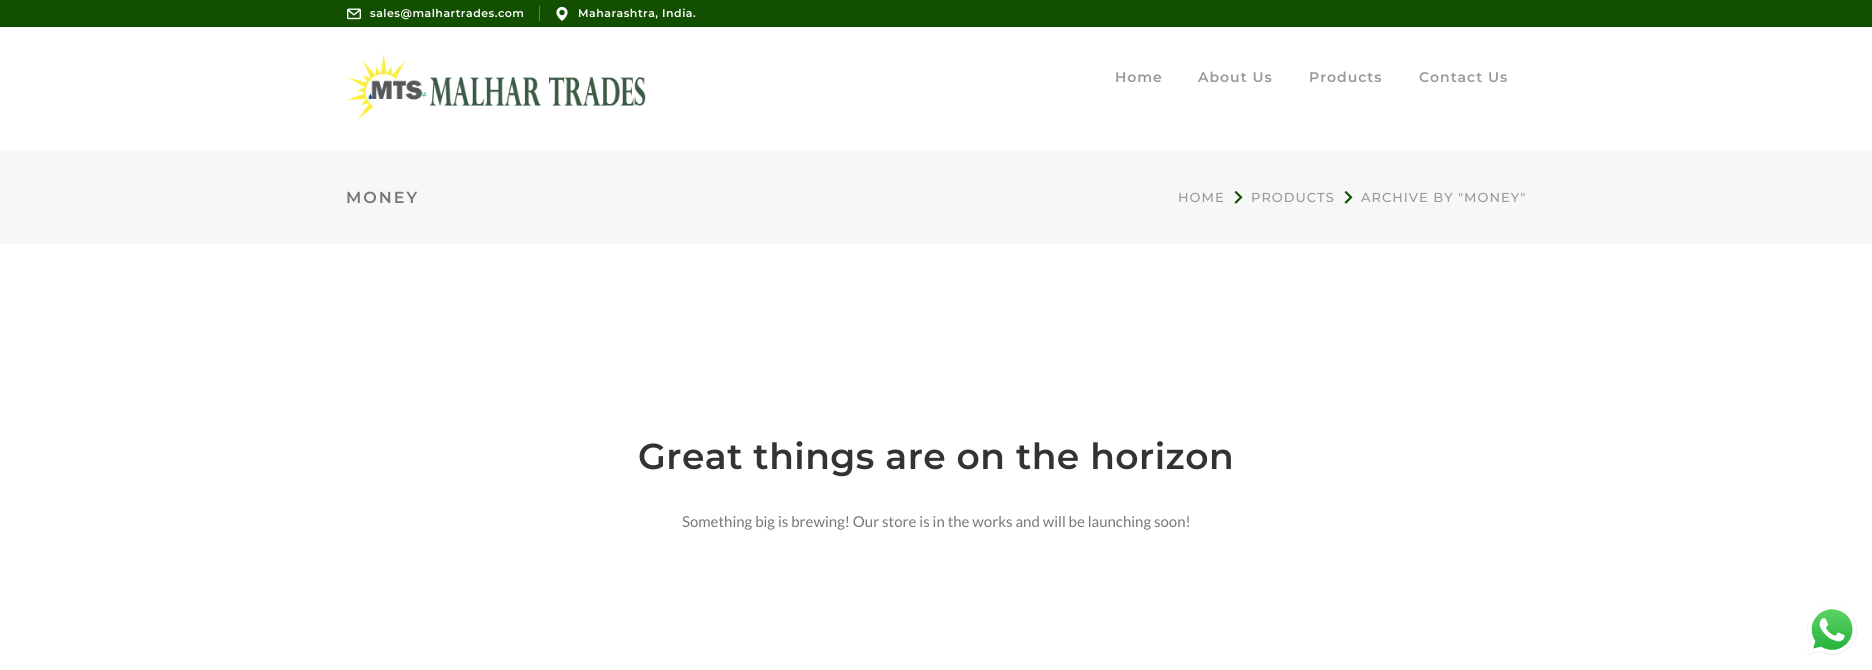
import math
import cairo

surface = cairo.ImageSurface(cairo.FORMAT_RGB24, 1872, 670)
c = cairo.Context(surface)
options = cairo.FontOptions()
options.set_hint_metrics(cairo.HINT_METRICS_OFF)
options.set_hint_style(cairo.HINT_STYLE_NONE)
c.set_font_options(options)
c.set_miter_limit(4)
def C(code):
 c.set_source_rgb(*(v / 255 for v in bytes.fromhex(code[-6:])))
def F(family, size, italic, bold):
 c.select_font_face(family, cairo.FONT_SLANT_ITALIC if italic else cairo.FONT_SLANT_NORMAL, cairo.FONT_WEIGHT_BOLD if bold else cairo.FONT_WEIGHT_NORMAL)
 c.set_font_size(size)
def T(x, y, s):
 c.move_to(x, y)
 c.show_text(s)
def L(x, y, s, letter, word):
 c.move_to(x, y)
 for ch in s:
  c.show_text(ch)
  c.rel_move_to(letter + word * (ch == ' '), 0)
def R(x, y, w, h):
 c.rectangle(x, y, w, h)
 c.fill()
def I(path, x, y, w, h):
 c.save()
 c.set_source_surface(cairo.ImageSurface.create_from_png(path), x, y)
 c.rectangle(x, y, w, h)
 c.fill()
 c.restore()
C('ffffff')
c.paint()
C('134f00')
R(0,0,1872,27)
I('1.png',347,8,14,12)
F('Montserrat SemiBold',11,0,0)
C('ffffff')
L(370,17,'sales@malhartrades.com',.5,0)
C('5a844d')
R(539,6,1,15)
I('2.png',556,6,12,15)
C('ffffff')
L(578,17,'Maharashtra, India.',.5,0)
I('3.png',346,54,300,66)
F('Montserrat SemiBold',14,0,0)
C('999999')
L(1115,82,'Home',1,0)
L(1198,82,'About Us',1,0)
L(1309,82,'Products',1,0)
L(1419,82,'Contact Us',1,0)
C('f7f7f7')
R(0,150,1872,94)
F('Montserrat SemiBold',16,0,0)
C('777777')
L(346,203,'MONEY',2,0)
F('Montserrat Medium',13,0,0)
C('999999')
L(1178,202,'HOME',1,0)
I('4.png',1234,191,9,13)
L(1251,202,'PRODUCTS',1,0)
I('4.png',1344,191,9,13)
L(1361,202,'ARCHIVE BY "MONEY"',1,0)
F('Montserrat SemiBold',36,0,0)
C('333333')
L(638,469,'Great things are on the horizon',.5,0)
F('Lato',15,0,0)
C('777777')
T(682,527,'Something big is brewing! Our store is in the works and will be launching soon!')
I('5.png',1807,605,50,50)
surface.write_to_png('o.png')
